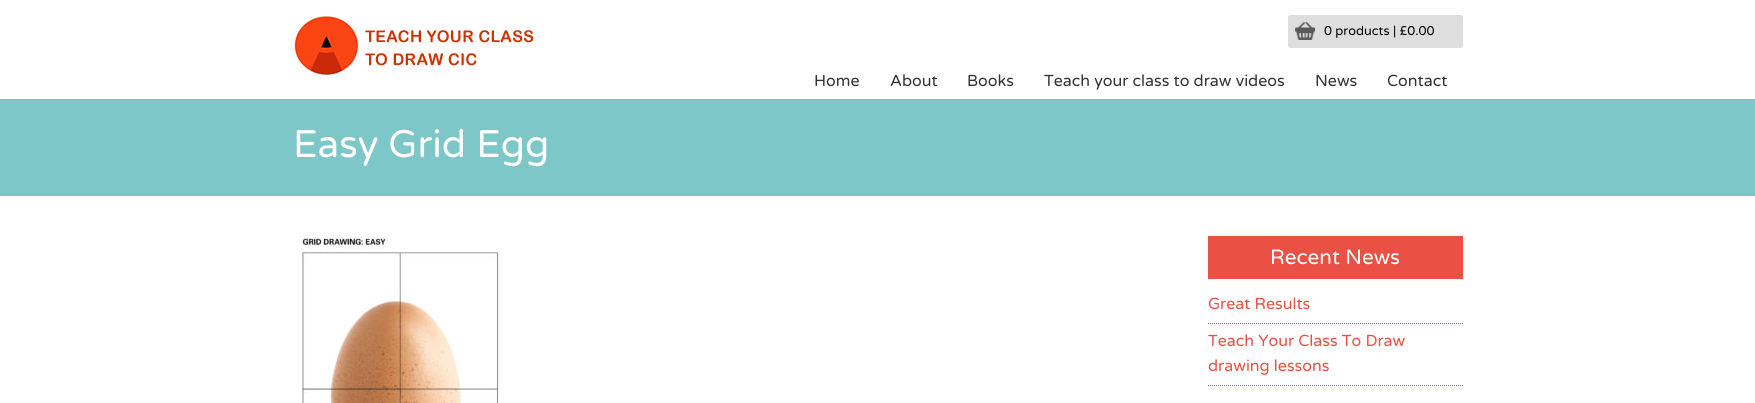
import math
import cairo

surface = cairo.ImageSurface(cairo.FORMAT_RGB24, 1755, 403)
c = cairo.Context(surface)
options = cairo.FontOptions()
options.set_hint_metrics(cairo.HINT_METRICS_OFF)
options.set_hint_style(cairo.HINT_STYLE_NONE)
c.set_font_options(options)
c.set_miter_limit(4)
def C(code):
 c.set_source_rgb(*(v / 255 for v in bytes.fromhex(code[-6:])))
def F(family, size, italic, bold):
 c.select_font_face(family, cairo.FONT_SLANT_ITALIC if italic else cairo.FONT_SLANT_NORMAL, cairo.FONT_WEIGHT_BOLD if bold else cairo.FONT_WEIGHT_NORMAL)
 c.set_font_size(size)
def T(x, y, s):
 c.move_to(x, y)
 c.show_text(s)
def R(x, y, w, h):
 c.rectangle(x, y, w, h)
 c.fill()
def Q(x, y, w, h, r):
 c.new_sub_path()
 for i, (u, v) in enumerate([(x + w - r, y + h - r), (x + r, y + h - r), (x + r, y + r), (x + w - r, y + r)]):
  c.arc(u, v, r, i * math.pi / 2, (i + 1) * math.pi / 2)
 c.close_path()
def I(path, x, y, w, h):
 c.save()
 c.set_source_surface(cairo.ImageSurface.create_from_png(path), x, y)
 c.rectangle(x, y, w, h)
 c.fill()
 c.restore()
C('ffffff')
c.paint()
I('1.png',294,16,240,59)
C('dedede')
Q(1288,15,175,33,2)
c.fill()
I('2.png',1295,22,20,18)
F('Varela Round',12.75,0,0)
C('000000')
T(1324,35,'0 products | £0.00')
F('Varela Round',16,0,0)
C('333333')
T(814,86,'Home')
T(890,86,'About')
T(967,86,'Books')
T(1044,86,'Teach your class to draw videos')
T(1315,86,'News')
T(1387,86,'Contact')
C('7dc7c8')
R(0,99,1755,97)
F('Varela Round',38.5,0,0)
C('ffffff')
T(293,157,'Easy Grid Egg')
I('3.png',301,236,200,167)
C('ea5044')
R(1208,236,255,43)
F('Varela Round',20.75,0,0)
C('ffffff')
T(1270,264,'Recent News')
c.new_path()
c.move_to(1208,323.5)
c.line_to(1463,323.5)
C('ea5044')
c.set_line_width(1)
c.set_dash([1,1])
c.stroke()
F('Varela Round',16,0,0)
T(1208,309,'Great Results')
c.new_path()
c.move_to(1208,385.5)
c.line_to(1463,385.5)
c.stroke()
T(1208,346,'Teach Your Class To Draw')
T(1208,371,'drawing lessons')
surface.write_to_png('o.png')
